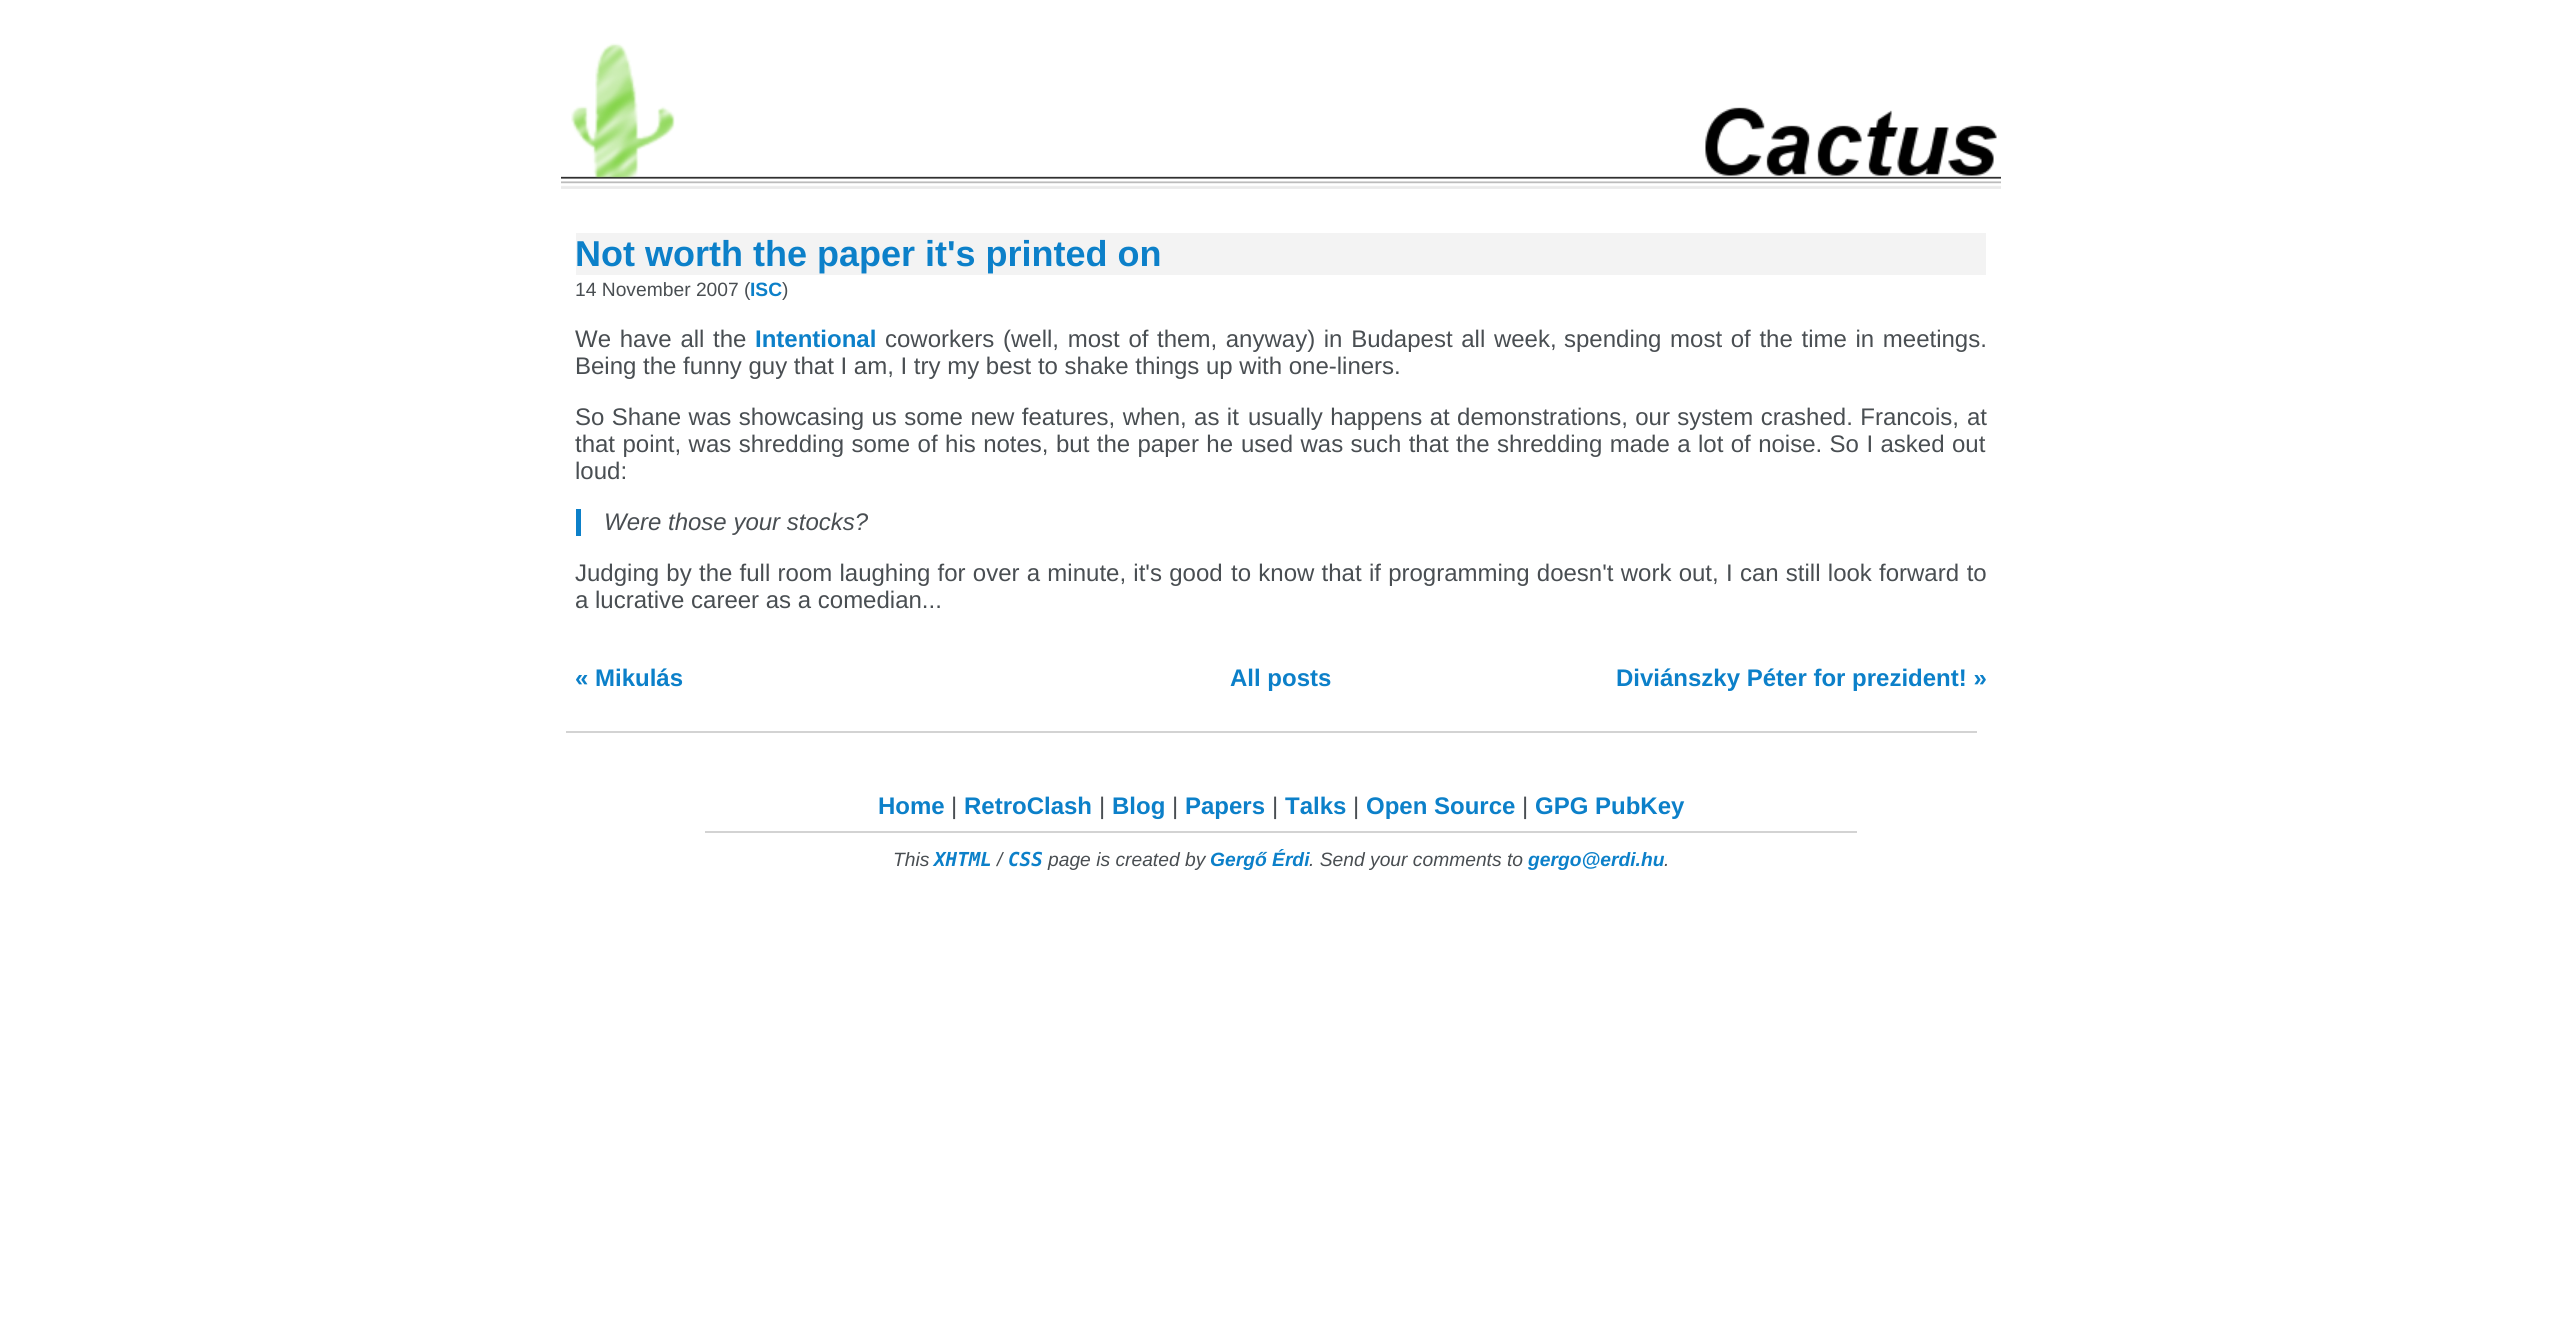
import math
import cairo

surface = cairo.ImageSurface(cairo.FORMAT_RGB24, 2561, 1324)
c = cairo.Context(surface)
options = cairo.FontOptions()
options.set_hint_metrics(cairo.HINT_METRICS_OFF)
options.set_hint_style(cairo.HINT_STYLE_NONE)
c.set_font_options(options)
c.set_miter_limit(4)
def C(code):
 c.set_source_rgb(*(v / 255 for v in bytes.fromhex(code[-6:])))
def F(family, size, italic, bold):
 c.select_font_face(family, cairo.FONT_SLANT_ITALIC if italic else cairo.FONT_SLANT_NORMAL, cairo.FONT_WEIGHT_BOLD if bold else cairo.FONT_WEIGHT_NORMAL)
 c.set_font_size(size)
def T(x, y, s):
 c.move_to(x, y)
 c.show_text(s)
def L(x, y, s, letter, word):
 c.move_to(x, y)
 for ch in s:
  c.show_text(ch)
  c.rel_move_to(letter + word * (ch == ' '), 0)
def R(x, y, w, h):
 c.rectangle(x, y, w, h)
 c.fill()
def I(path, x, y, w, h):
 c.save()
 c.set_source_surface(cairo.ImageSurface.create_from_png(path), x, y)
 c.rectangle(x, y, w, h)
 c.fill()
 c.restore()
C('ffffff')
c.paint()
I('1.png',561,176,1440,13)
I('2.png',571,43,104,135)
I('3.png',1705,107,292,69)
C('f3f3f3')
R(576,233,1410,42)
F('Liberation Sans',36,0,1)
C('0c80c9')
T(575,266,'Not worth the paper it\'s printed on')
F('Liberation Sans',19.25,0,0)
C('494e52')
T(575,296,'14 November 2007 (')
F('Liberation Sans',19.25,0,1)
C('0c80c9')
T(750,296,'ISC')
F('Liberation Sans',19.25,0,0)
C('494e52')
T(782,296,')')
F('Liberation Sans',24,0,0)
L(575,347,'We have all the',0,2)
F('Liberation Sans',24,0,1)
C('0c80c9')
T(755,347,'Intentional')
F('Liberation Sans',24,0,0)
C('494e52')
L(885,347,'coworkers (well, most of them, anyway) in Budapest all week,',0,2)
L(1564,347,'spending most of the time in meetings.',0,2)
T(575,374,'Being the funny guy that I am, I try my best to shake things up with one-liners.')
L(575,425,'So Shane was showcasing us some new features, when, as it',0,.75)
L(1248,425,'usually happens at demonstrations, our system crashed. Francois,',0,.75)
T(1967,425,'at')
L(575,452,'that point, was shredding some of his notes, but the paper he',0,.75)
L(1241,452,'used was such that the shredding made a lot of noise. So I asked out',0,.75)
T(575,479,'loud:')
C('0c80c9')
R(576,509,5,27)
F('Liberation Sans',24,1,0)
C('494e52')
T(604,530,'Were those your stocks?')
F('Liberation Sans',24,0,0)
L(575,581,'Judging by the full room laughing for over a minute, it\'s good',0,.6)
L(1231,581,'to know that if programming doesn\'t work out, I can still look',0,.6)
L(1879,581,'forward to',0,1)
T(575,608,'a lucrative career as a comedian...')
F('Liberation Sans',24,0,1)
C('0c80c9')
T(575,686,'« Mikulás')
T(1230,686,'All posts')
T(1616,686,'Diviánszky Péter for prezident! »')
C('d3d3d3')
R(566,731,1411,2)
C('0c80c9')
T(878,814,'Home')
F('Liberation Sans',24,0,0)
C('494e52')
T(951,814,'|')
F('Liberation Sans',24,0,1)
C('0c80c9')
T(964,814,'RetroClash')
F('Liberation Sans',24,0,0)
C('494e52')
T(1099,814,'|')
F('Liberation Sans',24,0,1)
C('0c80c9')
T(1112,814,'Blog')
F('Liberation Sans',24,0,0)
C('494e52')
T(1172,814,'|')
F('Liberation Sans',24,0,1)
C('0c80c9')
T(1185,814,'Papers')
F('Liberation Sans',24,0,0)
C('494e52')
T(1272,814,'|')
F('Liberation Sans',24,0,1)
C('0c80c9')
T(1285,814,'Talks')
F('Liberation Sans',24,0,0)
C('494e52')
T(1353,814,'|')
F('Liberation Sans',24,0,1)
C('0c80c9')
T(1366,814,'Open Source')
F('Liberation Sans',24,0,0)
C('494e52')
T(1522,814,'|')
F('Liberation Sans',24,0,1)
C('0c80c9')
T(1535,814,'GPG PubKey')
C('d3d3d3')
R(705,831,1152,2)
F('Liberation Sans',19.25,1,0)
C('494e52')
T(893,866,'This')
F('DejaVu Sans Mono',19.25,1,1)
C('0c80c9')
T(934,866,'XHTML')
F('Liberation Sans',19.25,1,0)
C('494e52')
T(997,866,'/')
F('DejaVu Sans Mono',19.25,1,1)
C('0c80c9')
T(1008,866,'CSS')
F('Liberation Sans',19.25,1,0)
C('494e52')
T(1048,866,'page is created by')
F('Liberation Sans',19.25,1,1)
C('0c80c9')
T(1210,866,'Gergő Érdi')
F('Liberation Sans',19.25,1,0)
C('494e52')
T(1309,866,'. Send your comments to')
F('Liberation Sans',19.25,1,1)
C('0c80c9')
T(1528,866,'gergo@erdi.hu')
F('Liberation Sans',19.25,1,0)
C('494e52')
T(1664,866,'.')
surface.write_to_png('o.png')
